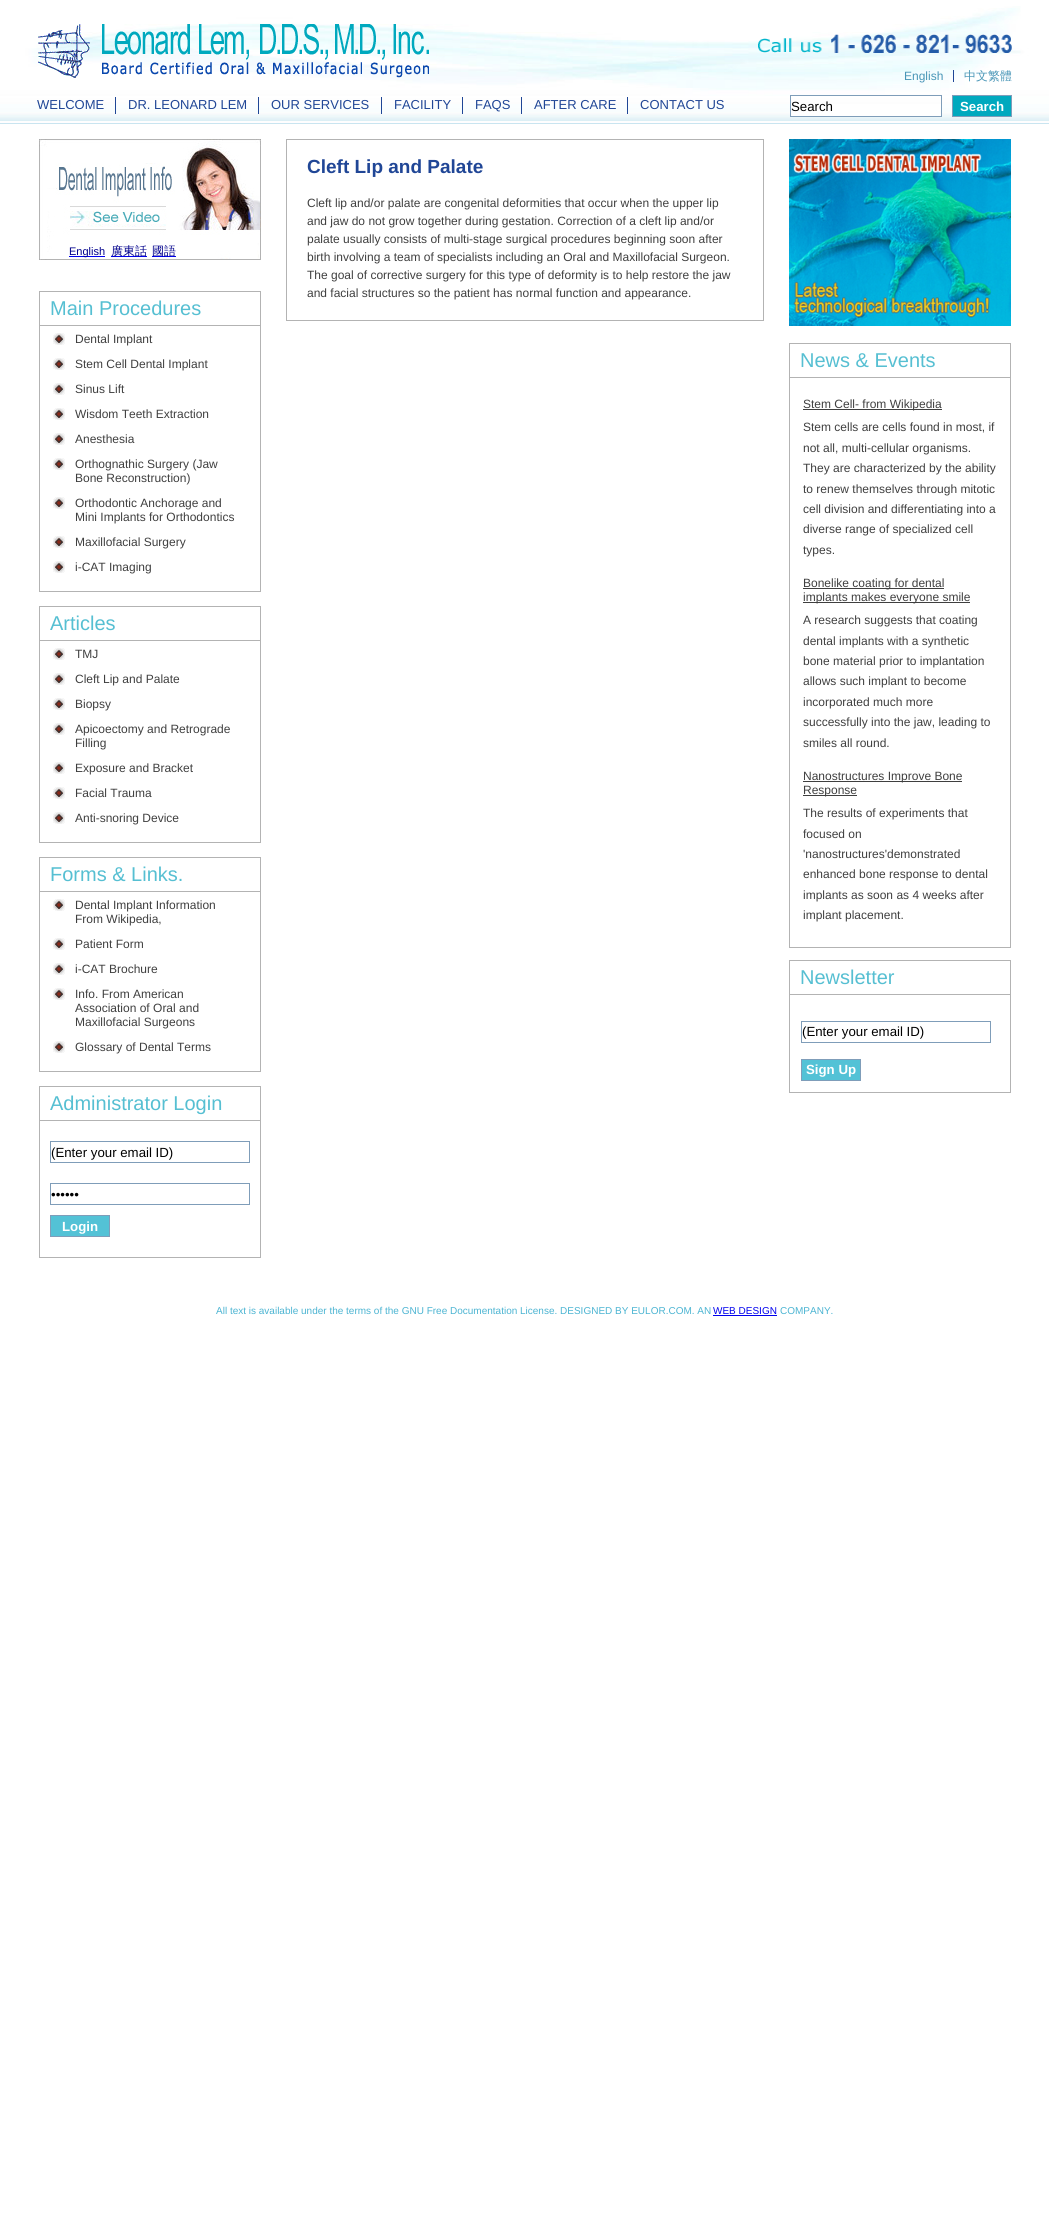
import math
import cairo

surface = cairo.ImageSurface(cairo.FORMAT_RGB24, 1049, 2237)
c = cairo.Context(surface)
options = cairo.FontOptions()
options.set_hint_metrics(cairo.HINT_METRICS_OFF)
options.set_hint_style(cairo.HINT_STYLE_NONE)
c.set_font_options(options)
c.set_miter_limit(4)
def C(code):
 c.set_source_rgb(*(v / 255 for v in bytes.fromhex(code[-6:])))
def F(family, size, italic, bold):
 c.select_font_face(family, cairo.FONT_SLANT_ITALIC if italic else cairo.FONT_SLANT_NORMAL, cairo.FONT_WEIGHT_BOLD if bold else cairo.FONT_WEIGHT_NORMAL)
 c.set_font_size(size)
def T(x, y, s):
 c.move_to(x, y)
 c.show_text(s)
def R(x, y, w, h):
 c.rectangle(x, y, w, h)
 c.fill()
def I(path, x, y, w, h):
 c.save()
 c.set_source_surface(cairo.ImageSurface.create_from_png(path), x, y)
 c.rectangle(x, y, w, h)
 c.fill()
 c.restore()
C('ffffff')
c.paint()
I('1.png',0,6,1049,118)
I('2.png',38,24,391,54)
I('3.png',758,34,254,19)
F('Liberation Sans',12,0,0)
C('4996b7')
T(904,80,'English')
C('204696')
R(953,70,1,12)
F('WenQuanYi Zen Hei Medium',12,0,0)
C('4996b7')
T(964,80,'中文繁體')
F('Liberation Sans',13,0,0)
C('204696')
T(37,109,'WELCOME')
R(115,97,1,17)
T(128,109,'DR. LEONARD LEM')
R(258,97,1,17)
T(271,109,'OUR SERVICES')
R(381,97,1,17)
T(394,109,'FACILITY')
R(462,97,1,17)
T(475,109,'FAQS')
R(521,97,1,17)
T(534,109,'AFTER CARE')
R(627,97,1,17)
T(640,109,'CONTACT US')
C('ffffff')
R(791,104,150,12)
c.rectangle(790.5,95.5,151,21)
C('7f9db9')
c.set_line_width(1)
c.stroke()
F('Liberation Sans',13.25,0,0)
C('000000')
T(791,111,'Search')
C('00a9be')
c.rectangle(952.5,95.5,59,21)
c.fill_preserve()
C('7f9db9')
c.stroke()
F('Liberation Sans',13.25,0,1)
C('ffffff')
T(960,111,'Search')
c.rectangle(286.5,139.5,477,181)
C('b3b3b3')
c.stroke()
F('Liberation Sans',19,0,1)
C('204696')
T(307,173,'Cleft Lip and Palate')
F('Liberation Sans',12,0,0)
C('3f3f3f')
T(307,207,'Cleft lip and/or palate are congenital deformities that occur when the upper lip')
T(307,225,'and jaw do not grow together during gestation. Correction of a cleft lip and/or')
T(307,243,'palate usually consists of multi-stage surgical procedures beginning soon after')
T(307,261,'birth involving a team of specialists including an Oral and Maxillofacial Surgeon.')
T(307,279,'The goal of corrective surgery for this type of deformity is to help restore the jaw')
T(307,297,'and facial structures so the patient has normal function and appearance.')
I('4.png',39,139,222,121)
C('0000ee')
R(69,256,36,1)
F('Liberation Sans',11,0,0)
C('00008b')
T(69,255,'English')
C('0000ee')
R(111,256,36,1)
F('WenQuanYi Zen Hei Medium',12,0,0)
C('00008b')
T(111,255,'廣東話')
C('0000ee')
R(152,256,24,1)
C('00008b')
T(152,255,'國語')
c.rectangle(39.5,291.5,221,300)
C('b3b3b3')
c.stroke()
R(40,325,220,1)
F('Liberation Sans',20,0,0)
C('56bfd2')
T(50,315,'Main Procedures')
I('5.png',53,333,12,12)
F('Liberation Sans',12,0,0)
C('3f3f3f')
T(75,343,'Dental Implant')
I('5.png',53,358,12,12)
T(75,368,'Stem Cell Dental Implant')
I('5.png',53,383,12,12)
T(75,393,'Sinus Lift')
I('5.png',53,408,12,12)
T(75,418,'Wisdom Teeth Extraction')
I('5.png',53,433,12,12)
T(75,443,'Anesthesia')
I('5.png',53,458,12,12)
T(75,468,'Orthognathic Surgery (Jaw')
T(75,482,'Bone Reconstruction)')
I('5.png',53,497,12,12)
T(75,507,'Orthodontic Anchorage and')
T(75,521,'Mini Implants for Orthodontics')
I('5.png',53,536,12,12)
T(75,546,'Maxillofacial Surgery')
I('5.png',53,561,12,12)
T(75,571,'i-CAT Imaging')
c.rectangle(39.5,606.5,221,236)
C('b3b3b3')
c.stroke()
R(40,640,220,1)
F('Liberation Sans',20,0,0)
C('56bfd2')
T(50,630,'Articles')
I('5.png',53,648,12,12)
F('Liberation Sans',12,0,0)
C('3f3f3f')
T(75,658,'TMJ')
I('5.png',53,673,12,12)
T(75,683,'Cleft Lip and Palate')
I('5.png',53,698,12,12)
T(75,708,'Biopsy')
I('5.png',53,723,12,12)
T(75,733,'Apicoectomy and Retrograde')
T(75,747,'Filling')
I('5.png',53,762,12,12)
T(75,772,'Exposure and Bracket')
I('5.png',53,787,12,12)
T(75,797,'Facial Trauma')
I('5.png',53,812,12,12)
T(75,822,'Anti-snoring Device')
c.rectangle(39.5,857.5,221,214)
C('b3b3b3')
c.stroke()
R(40,891,220,1)
F('Liberation Sans',20,0,0)
C('56bfd2')
T(50,881,'Forms & Links.')
I('5.png',53,899,12,12)
F('Liberation Sans',12,0,0)
C('3f3f3f')
T(75,909,'Dental Implant Information')
T(75,923,'From Wikipedia,')
I('5.png',53,938,12,12)
T(75,948,'Patient Form')
I('5.png',53,963,12,12)
T(75,973,'i-CAT Brochure')
I('5.png',53,988,12,12)
T(75,998,'Info. From American')
T(75,1012,'Association of Oral and')
T(75,1026,'Maxillofacial Surgeons')
I('5.png',53,1041,12,12)
T(75,1051,'Glossary of Dental Terms')
c.rectangle(39.5,1086.5,221,171)
C('b3b3b3')
c.stroke()
R(40,1120,220,1)
F('Liberation Sans',20,0,0)
C('56bfd2')
T(50,1110,'Administrator Login')
c.rectangle(50.5,1141.5,199,21)
C('7f9db9')
c.stroke()
F('Liberation Sans',13.25,0,0)
C('000000')
T(51,1157,'(Enter your email ID)')
c.rectangle(50.5,1183.5,199,21)
C('7f9db9')
c.stroke()
C('000000')
T(51,1199,'••••••')
C('53c2d6')
c.rectangle(50.5,1215.5,59,21)
c.fill_preserve()
C('7f9db9')
c.stroke()
F('Liberation Sans',13.25,0,1)
C('ffffff')
T(62,1231,'Login')
I('6.png',789,139,222,187)
C('b3b3b3')
R(789,343,222,1)
R(1010,343,1,34)
R(789,343,1,34)
F('Liberation Sans',20,0,0)
C('56bfd2')
T(800,367,'News & Events')
c.rectangle(789.5,377.5,221,570)
C('b3b3b3')
c.stroke()
C('3f3f3f')
R(803,409,139,1)
F('Liberation Sans',12,0,0)
T(803,408,'Stem Cell- from Wikipedia')
T(803,431,'Stem cells are cells found in most, if')
T(803,452,'not all, multi-cellular organisms.')
T(803,472,'They are characterized by the ability')
T(803,493,'to renew themselves through mitotic')
T(803,513,'cell division and differentiating into a')
T(803,533,'diverse range of specialized cell')
T(803,554,'types.')
R(803,588,141,1)
T(803,587,'Bonelike coating for dental')
R(803,602,167,1)
T(803,601,'implants makes everyone smile')
T(803,624,'A research suggests that coating')
T(803,645,'dental implants with a synthetic')
T(803,665,'bone material prior to implantation')
T(803,685,'allows such implant to become')
T(803,706,'incorporated much more')
T(803,726,'successfully into the jaw, leading to')
T(803,747,'smiles all round.')
R(803,781,159,1)
T(803,780,'Nanostructures Improve Bone')
R(803,795,54,1)
T(803,794,'Response')
T(803,817,'The results of experiments that')
T(803,838,'focused on')
T(803,858,'\'nanostructures\'demonstrated')
T(803,878,'enhanced bone response to dental')
T(803,899,'implants as soon as 4 weeks after')
T(803,919,'implant placement.')
C('b3b3b3')
R(789,960,222,1)
R(1010,960,1,34)
R(789,960,1,34)
F('Liberation Sans',20,0,0)
C('56bfd2')
T(800,984,'Newsletter')
c.rectangle(789.5,994.5,221,98)
C('b3b3b3')
c.stroke()
c.rectangle(801.5,1021.5,189,21)
C('7f9db9')
c.stroke()
F('Liberation Sans',13.25,0,0)
C('000000')
T(802,1036,'(Enter your email ID)')
C('53c2d6')
c.rectangle(801.5,1059.5,59,21)
c.fill_preserve()
C('7f9db9')
c.stroke()
F('Liberation Sans',13.25,0,1)
C('ffffff')
T(806,1074,'Sign Up')
F('Liberation Sans',10,0,0)
C('4bb4d2')
T(216,1314,'All text is available under the terms of the GNU Free Documentation License. DESIGNED BY EULOR.COM. AN')
C('0000ee')
T(713,1314,'WEB DESIGN')
R(713,1315,64,1)
C('4bb4d2')
T(780,1314,'COMPANY.')
surface.write_to_png('o.png')
